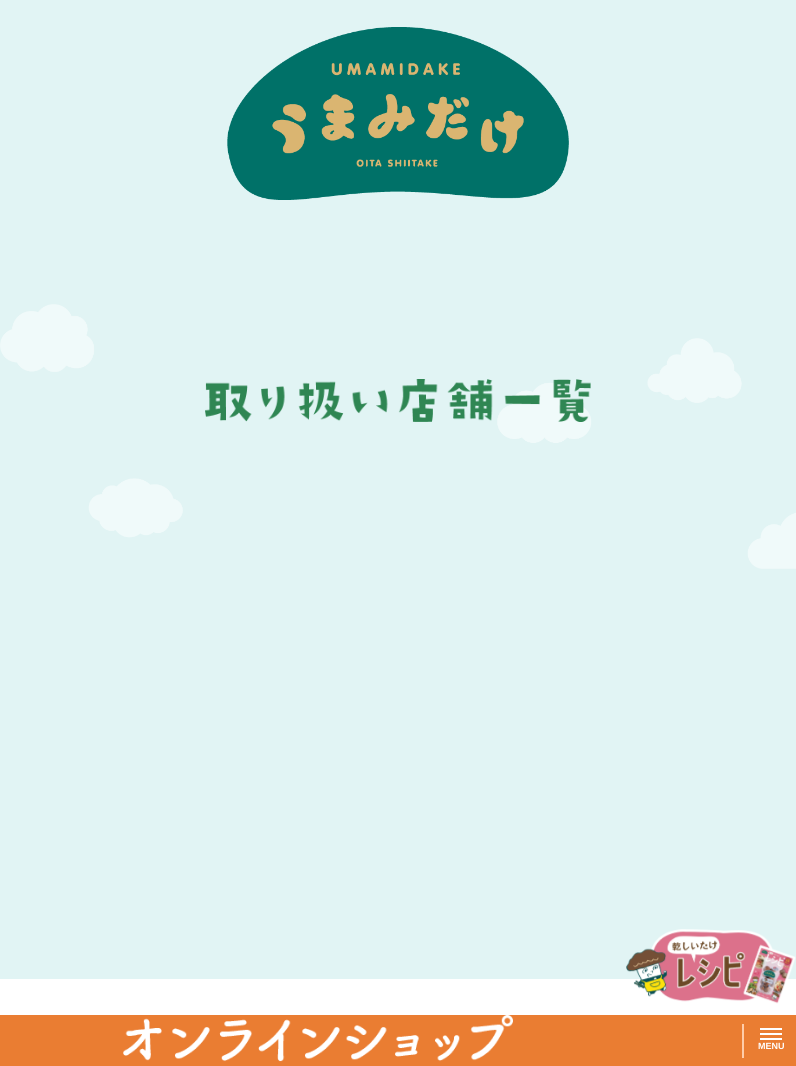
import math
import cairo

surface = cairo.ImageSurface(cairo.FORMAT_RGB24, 796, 1066)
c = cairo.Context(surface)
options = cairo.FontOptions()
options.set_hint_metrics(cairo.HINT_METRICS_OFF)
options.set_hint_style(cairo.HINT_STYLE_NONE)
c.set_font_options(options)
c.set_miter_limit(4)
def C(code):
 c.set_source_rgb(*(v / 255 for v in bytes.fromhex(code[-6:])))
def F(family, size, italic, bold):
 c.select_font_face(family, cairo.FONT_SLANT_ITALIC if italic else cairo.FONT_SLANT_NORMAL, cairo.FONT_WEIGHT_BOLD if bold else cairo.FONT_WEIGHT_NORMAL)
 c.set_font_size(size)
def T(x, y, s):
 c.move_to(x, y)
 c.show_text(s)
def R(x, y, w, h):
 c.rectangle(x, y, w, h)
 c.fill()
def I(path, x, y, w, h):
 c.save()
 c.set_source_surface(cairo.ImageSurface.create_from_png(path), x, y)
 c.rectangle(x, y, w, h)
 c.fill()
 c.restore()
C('ffffff')
c.paint()
C('e1f4f4')
R(0,0,796,979)
I('1.png',227,27,342,173)
I('2.png',0,304,796,265)
I('3.png',205,379,386,43)
I('4.png',626,929,170,75)
C('ea7d32')
R(0,1015,796,51)
I('5.png',123,1015,390,47)
C('ffcca9')
R(742,1024,2,34)
C('ffffff')
R(760,1033,22,2)
R(760,1028,22,2)
R(760,1038,22,2)
F('Liberation Sans',9,0,1)
T(758,1049,'MENU')
surface.write_to_png('o.png')
